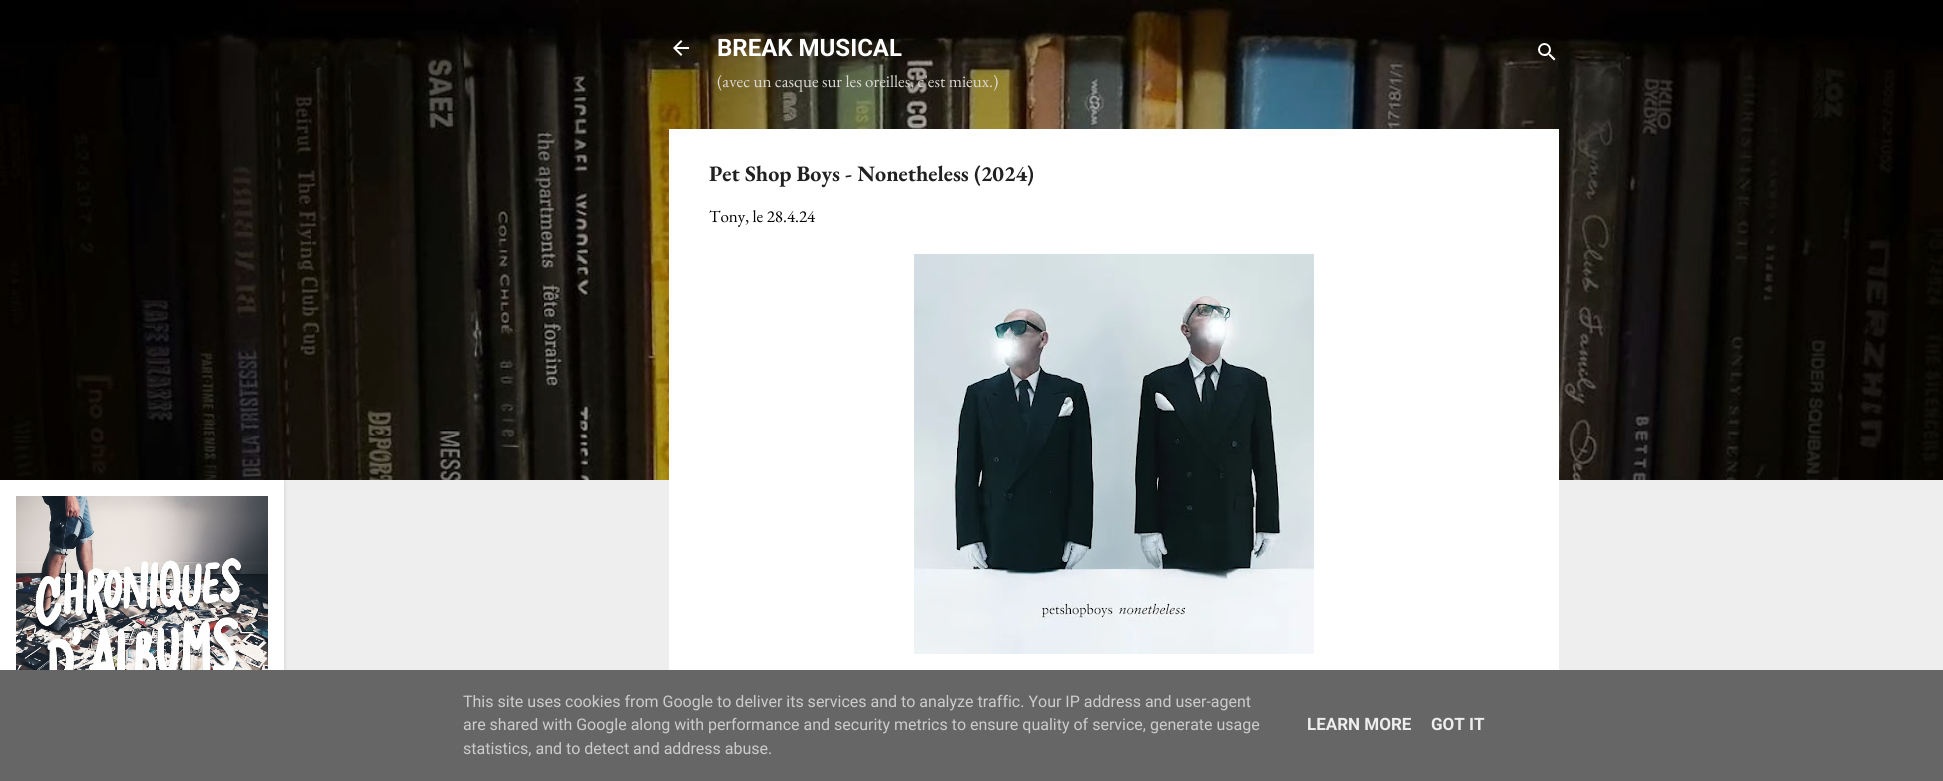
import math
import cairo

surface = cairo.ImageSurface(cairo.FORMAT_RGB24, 1943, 781)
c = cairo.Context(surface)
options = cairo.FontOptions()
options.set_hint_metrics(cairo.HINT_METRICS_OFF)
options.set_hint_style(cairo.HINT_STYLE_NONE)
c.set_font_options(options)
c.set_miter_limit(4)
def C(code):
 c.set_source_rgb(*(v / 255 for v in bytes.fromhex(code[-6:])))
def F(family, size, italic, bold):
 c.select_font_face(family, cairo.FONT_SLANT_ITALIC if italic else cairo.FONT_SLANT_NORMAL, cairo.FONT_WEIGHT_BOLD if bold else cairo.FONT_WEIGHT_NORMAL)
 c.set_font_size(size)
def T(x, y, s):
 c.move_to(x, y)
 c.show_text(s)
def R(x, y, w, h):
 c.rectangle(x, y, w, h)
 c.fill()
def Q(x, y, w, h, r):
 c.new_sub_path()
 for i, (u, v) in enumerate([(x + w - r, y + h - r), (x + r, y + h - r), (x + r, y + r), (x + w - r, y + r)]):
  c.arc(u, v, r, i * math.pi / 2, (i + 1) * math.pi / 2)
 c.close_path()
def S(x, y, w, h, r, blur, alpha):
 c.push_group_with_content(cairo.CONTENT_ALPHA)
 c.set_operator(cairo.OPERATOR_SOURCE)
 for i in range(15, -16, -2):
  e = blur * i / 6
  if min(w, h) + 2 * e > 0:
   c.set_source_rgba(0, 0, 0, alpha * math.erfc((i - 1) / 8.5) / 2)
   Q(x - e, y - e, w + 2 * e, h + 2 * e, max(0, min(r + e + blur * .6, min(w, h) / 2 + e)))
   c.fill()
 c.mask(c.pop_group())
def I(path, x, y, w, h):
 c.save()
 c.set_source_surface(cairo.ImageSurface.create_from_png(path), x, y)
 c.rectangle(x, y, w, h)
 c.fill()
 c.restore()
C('eeeeee')
c.paint()
I('1.png',0,0,1943,480)
I('2.png',673,40,16,16)
F('Roboto',24,0,1)
C('ffffff')
T(717,56,'BREAK MUSICAL')
F('EB Garamond',17,0,0)
C('dbdad5')
T(717,87,'(avec un casque sur les oreilles, c\'est mieux.)')
I('3.png',1538,43,18,18)
C('ffffff')
R(669,129,890,541)
F('EB Garamond',22,0,1)
C('212121')
T(709,181,'Pet Shop Boys - Nonetheless (2024)')
F('EB Garamond',17,0,0)
C('000000')
T(709,222,'Tony, le 28.4.24')
I('4.png',914,254,400,400)
C('000000')
S(1,481,284,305,0,1.5,.1)
C('ffffff')
R(0,480,284,190)
I('5.png',16,496,252,174)
C('666666')
R(0,670,1943,111)
F('Roboto',16,0,0)
C('cccccc')
T(463,707,'This site uses cookies from Google to deliver its services and to analyze traffic. Your IP address and user-agent')
T(463,730,'are shared with Google along with performance and security metrics to ensure quality of service, generate usage')
T(463,754,'statistics, and to detect and address abuse.')
F('Roboto',17,0,1)
C('eeeeee')
T(1307,730,'LEARN MORE')
T(1431,730,'GOT IT')
surface.write_to_png('o.png')
